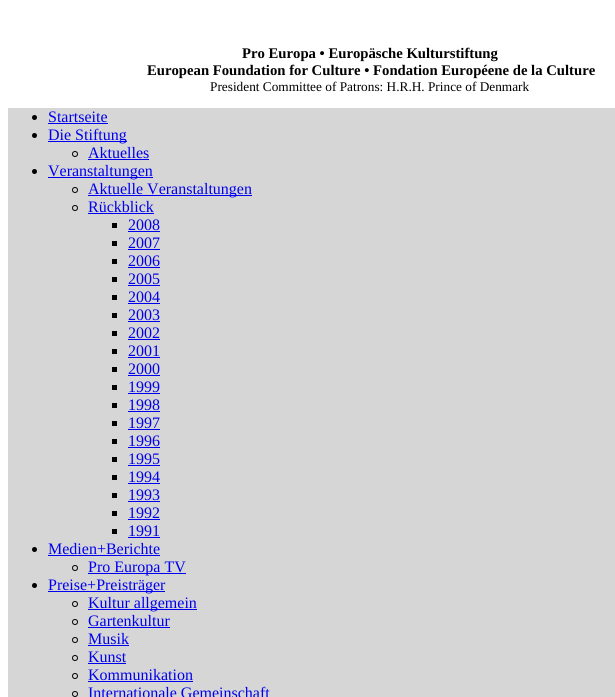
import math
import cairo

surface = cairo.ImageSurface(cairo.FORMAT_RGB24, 615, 697)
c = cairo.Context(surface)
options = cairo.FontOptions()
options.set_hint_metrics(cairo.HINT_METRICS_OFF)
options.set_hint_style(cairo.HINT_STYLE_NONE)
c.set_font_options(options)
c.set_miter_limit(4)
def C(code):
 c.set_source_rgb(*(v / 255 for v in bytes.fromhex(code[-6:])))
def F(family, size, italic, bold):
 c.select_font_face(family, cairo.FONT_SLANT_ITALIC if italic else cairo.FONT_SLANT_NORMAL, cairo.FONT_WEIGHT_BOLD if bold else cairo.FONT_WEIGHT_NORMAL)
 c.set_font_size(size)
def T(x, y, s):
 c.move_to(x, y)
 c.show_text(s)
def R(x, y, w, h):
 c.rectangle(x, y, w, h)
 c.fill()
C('ffffff')
c.paint()
F('Liberation Serif',14.7,0,1)
C('000000')
T(242,58,'Pro Europa • Europäsche Kulturstiftung')
T(147,75,'European Foundation for Culture • Fondation Européene de la Culture')
F('Liberation Serif',13.3,0,0)
T(210,91,'President Committee of Patrons: H.R.H. Prince of Denmark')
C('d6d6d6')
R(8,108,607,589)
C('000000')
c.new_path()
c.arc(34.5,117.5,2.5,0,2 * math.pi)
c.fill()
F('Liberation Serif',16,0,0)
C('0000ee')
T(48,122,'Startseite')
R(48,123,60,1)
C('000000')
c.new_path()
c.arc(34.5,135.5,2.5,0,2 * math.pi)
c.fill()
C('0000ee')
R(48,141,79,1)
T(48,140,'Die Stiftung')
c.new_path()
c.arc(75,154,2.5,0,2 * math.pi)
C('000000')
c.set_line_width(1)
c.stroke()
C('0000ee')
T(88,158,'Aktuelles')
R(88,159,61,1)
C('000000')
c.new_path()
c.arc(34.5,171.5,2.5,0,2 * math.pi)
c.fill()
C('0000ee')
R(48,177,105,1)
T(48,176,'Veranstaltungen')
c.new_path()
c.arc(75,190,2.5,0,2 * math.pi)
C('000000')
c.stroke()
C('0000ee')
R(88,195,164,1)
T(88,194,'Aktuelle Veranstaltungen')
c.new_path()
c.arc(75,208,2.5,0,2 * math.pi)
C('000000')
c.stroke()
C('0000ee')
T(88,212,'Rückblick')
R(88,213,66,1)
C('000000')
R(112,223,5,5)
C('0000ee')
T(128,230,'2008')
R(128,231,32,1)
C('000000')
R(112,241,5,5)
C('0000ee')
T(128,248,'2007')
R(128,249,32,1)
C('000000')
R(112,259,5,5)
C('0000ee')
T(128,266,'2006')
R(128,267,32,1)
C('000000')
R(112,277,5,5)
C('0000ee')
T(128,284,'2005')
R(128,285,32,1)
C('000000')
R(112,295,5,5)
C('0000ee')
T(128,302,'2004')
R(128,303,32,1)
C('000000')
R(112,313,5,5)
C('0000ee')
T(128,320,'2003')
R(128,321,32,1)
C('000000')
R(112,331,5,5)
C('0000ee')
T(128,338,'2002')
R(128,339,32,1)
C('000000')
R(112,349,5,5)
C('0000ee')
T(128,356,'2001')
R(128,357,32,1)
C('000000')
R(112,367,5,5)
C('0000ee')
T(128,374,'2000')
R(128,375,32,1)
C('000000')
R(112,385,5,5)
C('0000ee')
T(128,392,'1999')
R(128,393,32,1)
C('000000')
R(112,403,5,5)
C('0000ee')
T(128,410,'1998')
R(128,411,32,1)
C('000000')
R(112,421,5,5)
C('0000ee')
T(128,428,'1997')
R(128,429,32,1)
C('000000')
R(112,439,5,5)
C('0000ee')
T(128,446,'1996')
R(128,447,32,1)
C('000000')
R(112,457,5,5)
C('0000ee')
T(128,464,'1995')
R(128,465,32,1)
C('000000')
R(112,475,5,5)
C('0000ee')
T(128,482,'1994')
R(128,483,32,1)
C('000000')
R(112,493,5,5)
C('0000ee')
T(128,500,'1993')
R(128,501,32,1)
C('000000')
R(112,511,5,5)
C('0000ee')
T(128,518,'1992')
R(128,519,32,1)
C('000000')
R(112,529,5,5)
C('0000ee')
T(128,536,'1991')
R(128,537,32,1)
C('000000')
c.new_path()
c.arc(34.5,549.5,2.5,0,2 * math.pi)
c.fill()
C('0000ee')
T(48,554,'Medien+Berichte')
R(48,555,112,1)
c.new_path()
c.arc(75,568,2.5,0,2 * math.pi)
C('000000')
c.stroke()
C('0000ee')
R(88,573,98,1)
T(88,572,'Pro Europa TV')
C('000000')
c.new_path()
c.arc(34.5,585.5,2.5,0,2 * math.pi)
c.fill()
C('0000ee')
R(48,591,117,1)
T(48,590,'Preise+Preisträger')
c.new_path()
c.arc(75,604,2.5,0,2 * math.pi)
C('000000')
c.stroke()
C('0000ee')
R(88,609,109,1)
T(88,608,'Kultur allgemein')
c.new_path()
c.arc(75,622,2.5,0,2 * math.pi)
C('000000')
c.stroke()
C('0000ee')
T(88,626,'Gartenkultur')
R(88,627,82,1)
c.new_path()
c.arc(75,640,2.5,0,2 * math.pi)
C('000000')
c.stroke()
C('0000ee')
T(88,644,'Musik')
R(88,645,41,1)
c.new_path()
c.arc(75,658,2.5,0,2 * math.pi)
C('000000')
c.stroke()
C('0000ee')
T(88,662,'Kunst')
R(88,663,38,1)
c.new_path()
c.arc(75,676,2.5,0,2 * math.pi)
C('000000')
c.stroke()
C('0000ee')
T(88,680,'Kommunikation')
R(88,681,105,1)
c.new_path()
c.arc(75,694,2.5,0,2 * math.pi)
C('000000')
c.stroke()
C('0000ee')
T(88,698,'Internationale Gemeinschaft')
surface.write_to_png('o.png')
